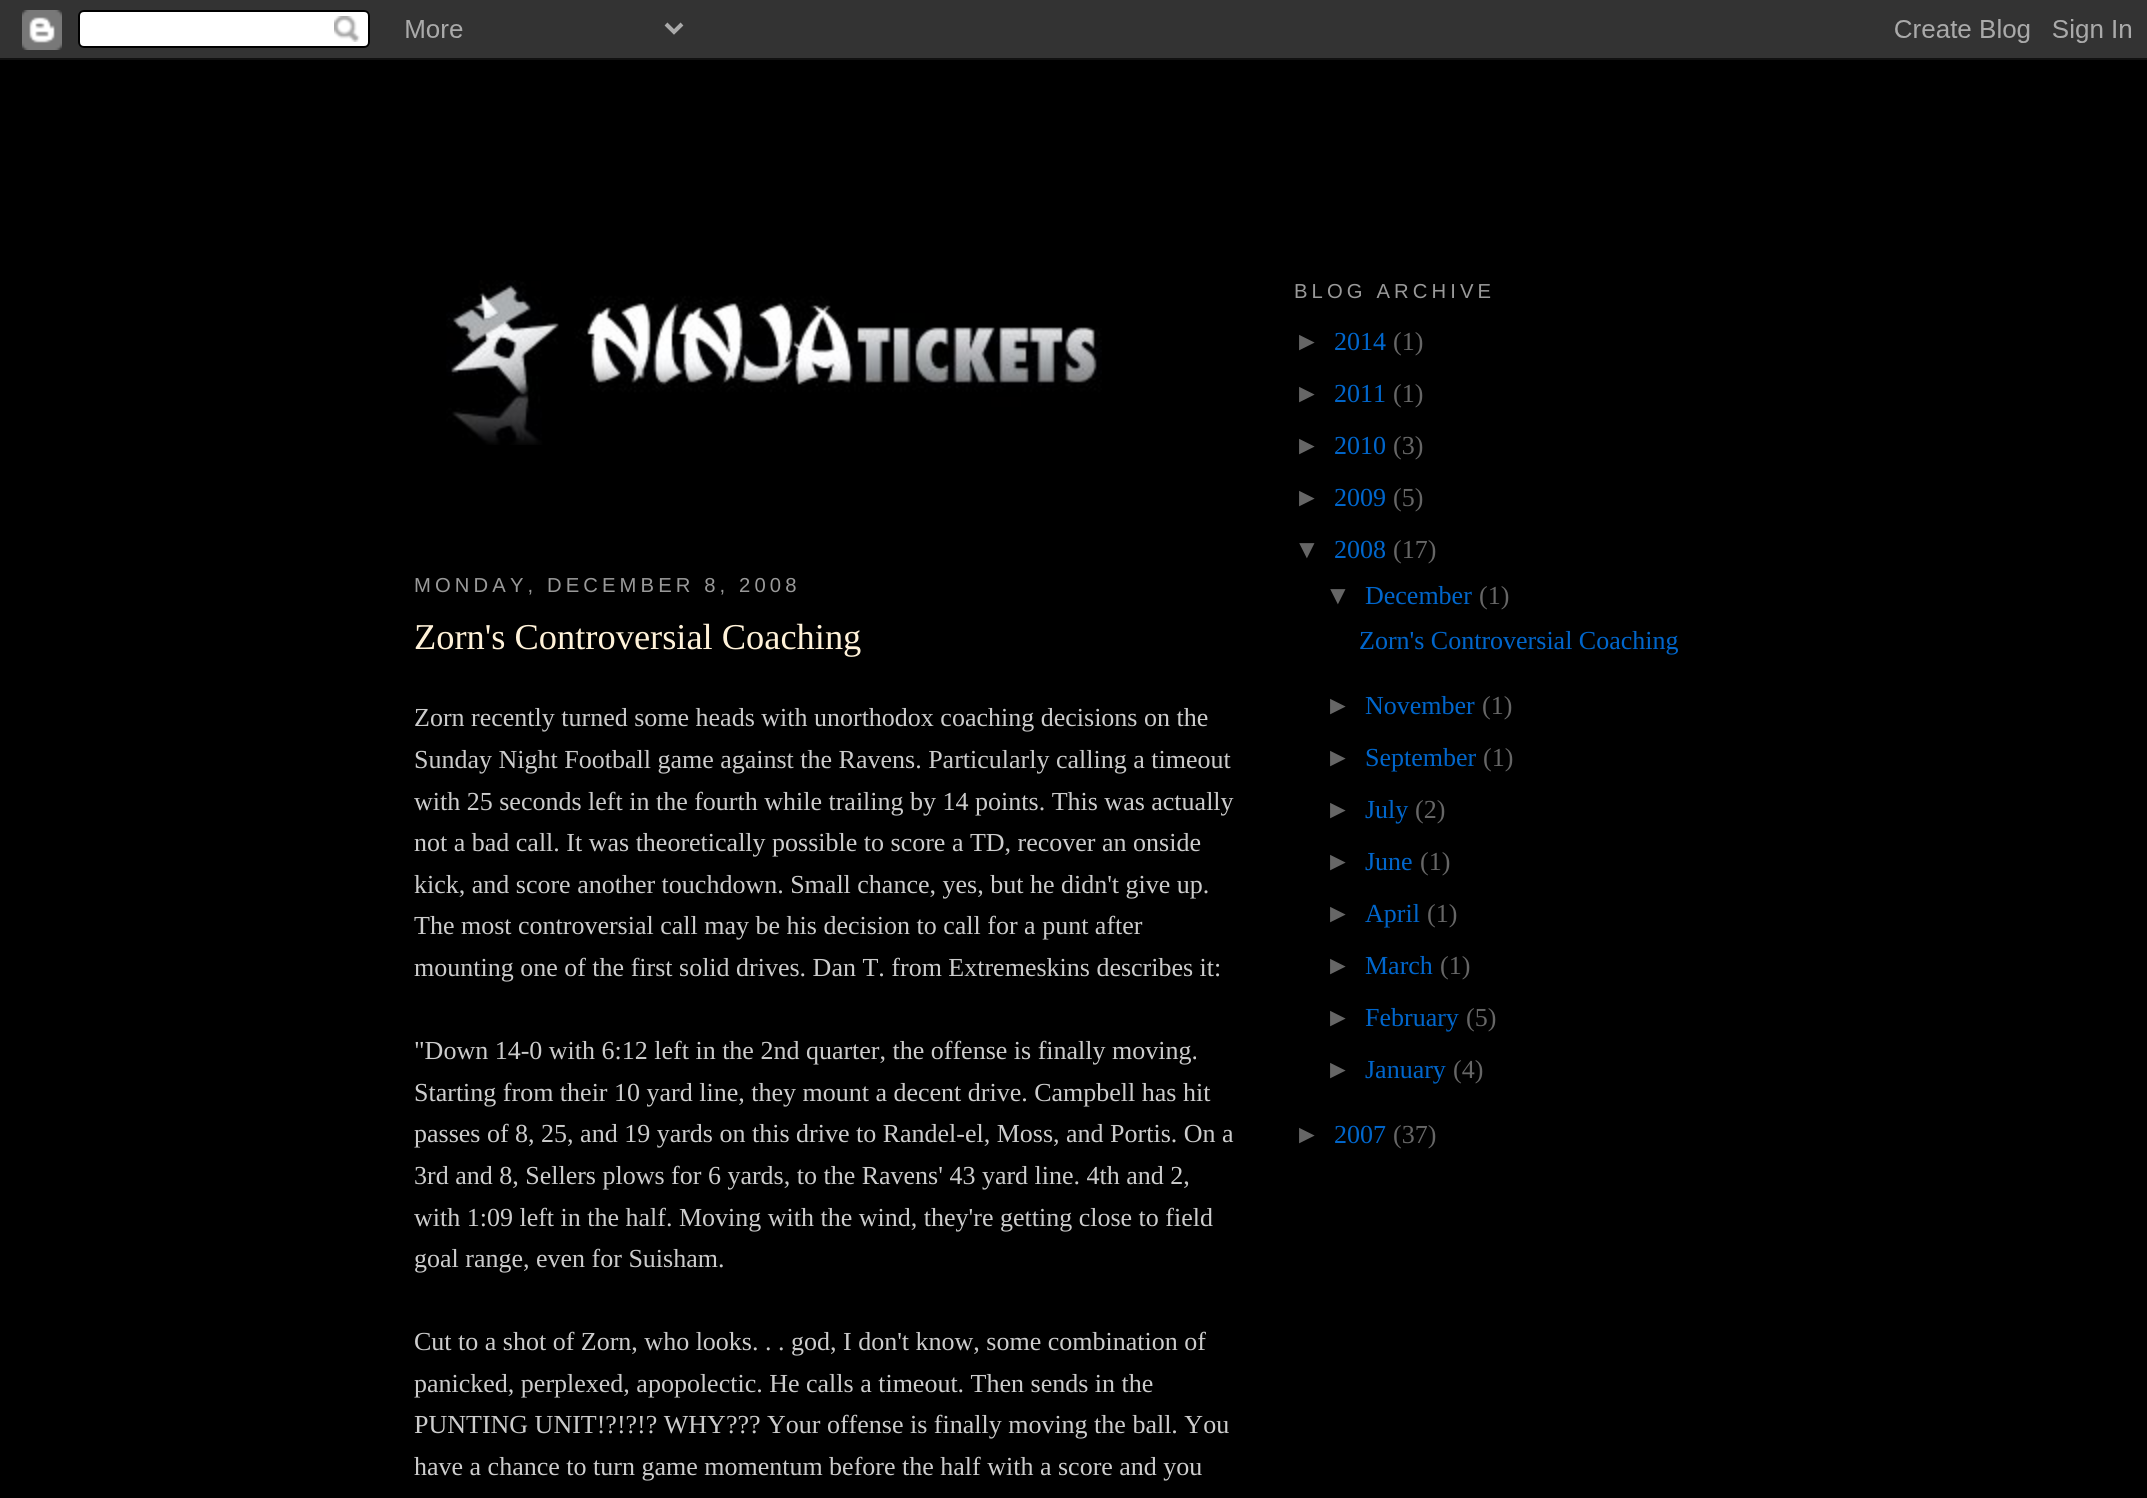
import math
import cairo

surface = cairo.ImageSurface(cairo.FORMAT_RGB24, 2147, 1498)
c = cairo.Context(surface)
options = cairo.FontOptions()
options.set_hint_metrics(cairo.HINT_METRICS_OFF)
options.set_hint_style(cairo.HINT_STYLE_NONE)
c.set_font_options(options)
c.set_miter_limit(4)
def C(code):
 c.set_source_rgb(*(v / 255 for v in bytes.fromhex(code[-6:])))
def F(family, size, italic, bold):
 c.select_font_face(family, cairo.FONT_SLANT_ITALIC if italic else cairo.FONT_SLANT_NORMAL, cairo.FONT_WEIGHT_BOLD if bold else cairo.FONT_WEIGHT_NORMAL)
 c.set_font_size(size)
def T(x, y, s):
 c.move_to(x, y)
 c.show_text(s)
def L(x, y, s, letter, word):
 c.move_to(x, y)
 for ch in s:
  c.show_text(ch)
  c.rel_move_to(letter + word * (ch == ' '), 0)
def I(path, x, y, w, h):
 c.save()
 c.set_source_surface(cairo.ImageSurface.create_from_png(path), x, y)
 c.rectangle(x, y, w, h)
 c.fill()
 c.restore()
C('000000')
c.paint()
I('1.png',0,0,2147,60)
I('2.png',446,280,656,165)
F('Liberation Sans',20.25,0,0)
C('999999')
L(414,592,'MONDAY, DECEMBER 8, 2008',4.1,0)
F('Liberation Serif',36.4,0,0)
C('fff2d9')
T(414,649,'Zorn\'s Controversial Coaching')
F('Liberation Serif',26,0,0)
C('cccccc')
T(414,726,'Zorn recently turned some heads with unorthodox coaching decisions on the')
T(414,768,'Sunday Night Football game against the Ravens. Particularly calling a timeout')
T(414,810,'with 25 seconds left in the fourth while trailing by 14 points. This was actually')
T(414,851,'not a bad call. It was theoretically possible to score a TD, recover an onside')
T(414,893,'kick, and score another touchdown. Small chance, yes, but he didn\'t give up.')
T(414,934,'The most controversial call may be his decision to call for a punt after')
T(414,976,'mounting one of the first solid drives. Dan T. from Extremeskins describes it:')
T(414,1059,'"Down 14-0 with 6:12 left in the 2nd quarter, the offense is finally moving.')
T(414,1101,'Starting from their 10 yard line, they mount a decent drive. Campbell has hit')
T(414,1142,'passes of 8, 25, and 19 yards on this drive to Randel-el, Moss, and Portis. On a')
T(414,1184,'3rd and 8, Sellers plows for 6 yards, to the Ravens\' 43 yard line. 4th and 2,')
T(414,1226,'with 1:09 left in the half. Moving with the wind, they\'re getting close to field')
T(414,1267,'goal range, even for Suisham.')
T(414,1350,'Cut to a shot of Zorn, who looks. . . god, I don\'t know, some combination of')
T(414,1392,'panicked, perplexed, apopolectic. He calls a timeout. Then sends in the')
T(414,1433,'PUNTING UNIT!?!?!? WHY??? Your offense is finally moving the ball. You')
T(414,1475,'have a chance to turn game momentum before the half with a score and you')
F('Liberation Sans',20.25,0,0)
C('999999')
L(1294,298,'BLOG ARCHIVE',4.1,0)
F('Liberation Sans',26,0,0)
C('666666')
T(1294,350,'►')
F('Liberation Serif',26,0,0)
C('0066cc')
T(1334,350,'2014')
C('666666')
T(1393,350,'(1)')
F('Liberation Sans',26,0,0)
T(1294,402,'►')
F('Liberation Serif',26,0,0)
C('0066cc')
T(1334,402,'2011')
C('666666')
T(1393,402,'(1)')
F('Liberation Sans',26,0,0)
T(1294,454,'►')
F('Liberation Serif',26,0,0)
C('0066cc')
T(1334,454,'2010')
C('666666')
T(1393,454,'(3)')
F('Liberation Sans',26,0,0)
T(1294,506,'►')
F('Liberation Serif',26,0,0)
C('0066cc')
T(1334,506,'2009')
C('666666')
T(1393,506,'(5)')
F('Liberation Sans',26,0,0)
T(1294,558,'▼')
F('Liberation Serif',26,0,0)
C('0066cc')
T(1334,558,'2008')
C('666666')
T(1393,558,'(17)')
F('Liberation Sans',26,0,0)
T(1325,604,'▼')
F('Liberation Serif',26,0,0)
C('0066cc')
T(1365,604,'December')
C('666666')
T(1479,604,'(1)')
C('0066cc')
T(1359,649,'Zorn\'s Controversial Coaching')
F('Liberation Sans',26,0,0)
C('666666')
T(1325,714,'►')
F('Liberation Serif',26,0,0)
C('0066cc')
T(1365,714,'November')
C('666666')
T(1482,714,'(1)')
F('Liberation Sans',26,0,0)
T(1325,766,'►')
F('Liberation Serif',26,0,0)
C('0066cc')
T(1365,766,'September')
C('666666')
T(1483,766,'(1)')
F('Liberation Sans',26,0,0)
T(1325,818,'►')
F('Liberation Serif',26,0,0)
C('0066cc')
T(1365,818,'July')
C('666666')
T(1415,818,'(2)')
F('Liberation Sans',26,0,0)
T(1325,870,'►')
F('Liberation Serif',26,0,0)
C('0066cc')
T(1365,870,'June')
C('666666')
T(1420,870,'(1)')
F('Liberation Sans',26,0,0)
T(1325,922,'►')
F('Liberation Serif',26,0,0)
C('0066cc')
T(1365,922,'April')
C('666666')
T(1427,922,'(1)')
F('Liberation Sans',26,0,0)
T(1325,974,'►')
F('Liberation Serif',26,0,0)
C('0066cc')
T(1365,974,'March')
C('666666')
T(1440,974,'(1)')
F('Liberation Sans',26,0,0)
T(1325,1026,'►')
F('Liberation Serif',26,0,0)
C('0066cc')
T(1365,1026,'February')
C('666666')
T(1466,1026,'(5)')
F('Liberation Sans',26,0,0)
T(1325,1078,'►')
F('Liberation Serif',26,0,0)
C('0066cc')
T(1365,1078,'January')
C('666666')
T(1453,1078,'(4)')
F('Liberation Sans',26,0,0)
T(1294,1143,'►')
F('Liberation Serif',26,0,0)
C('0066cc')
T(1334,1143,'2007')
C('666666')
T(1393,1143,'(37)')
surface.write_to_png('o.png')
